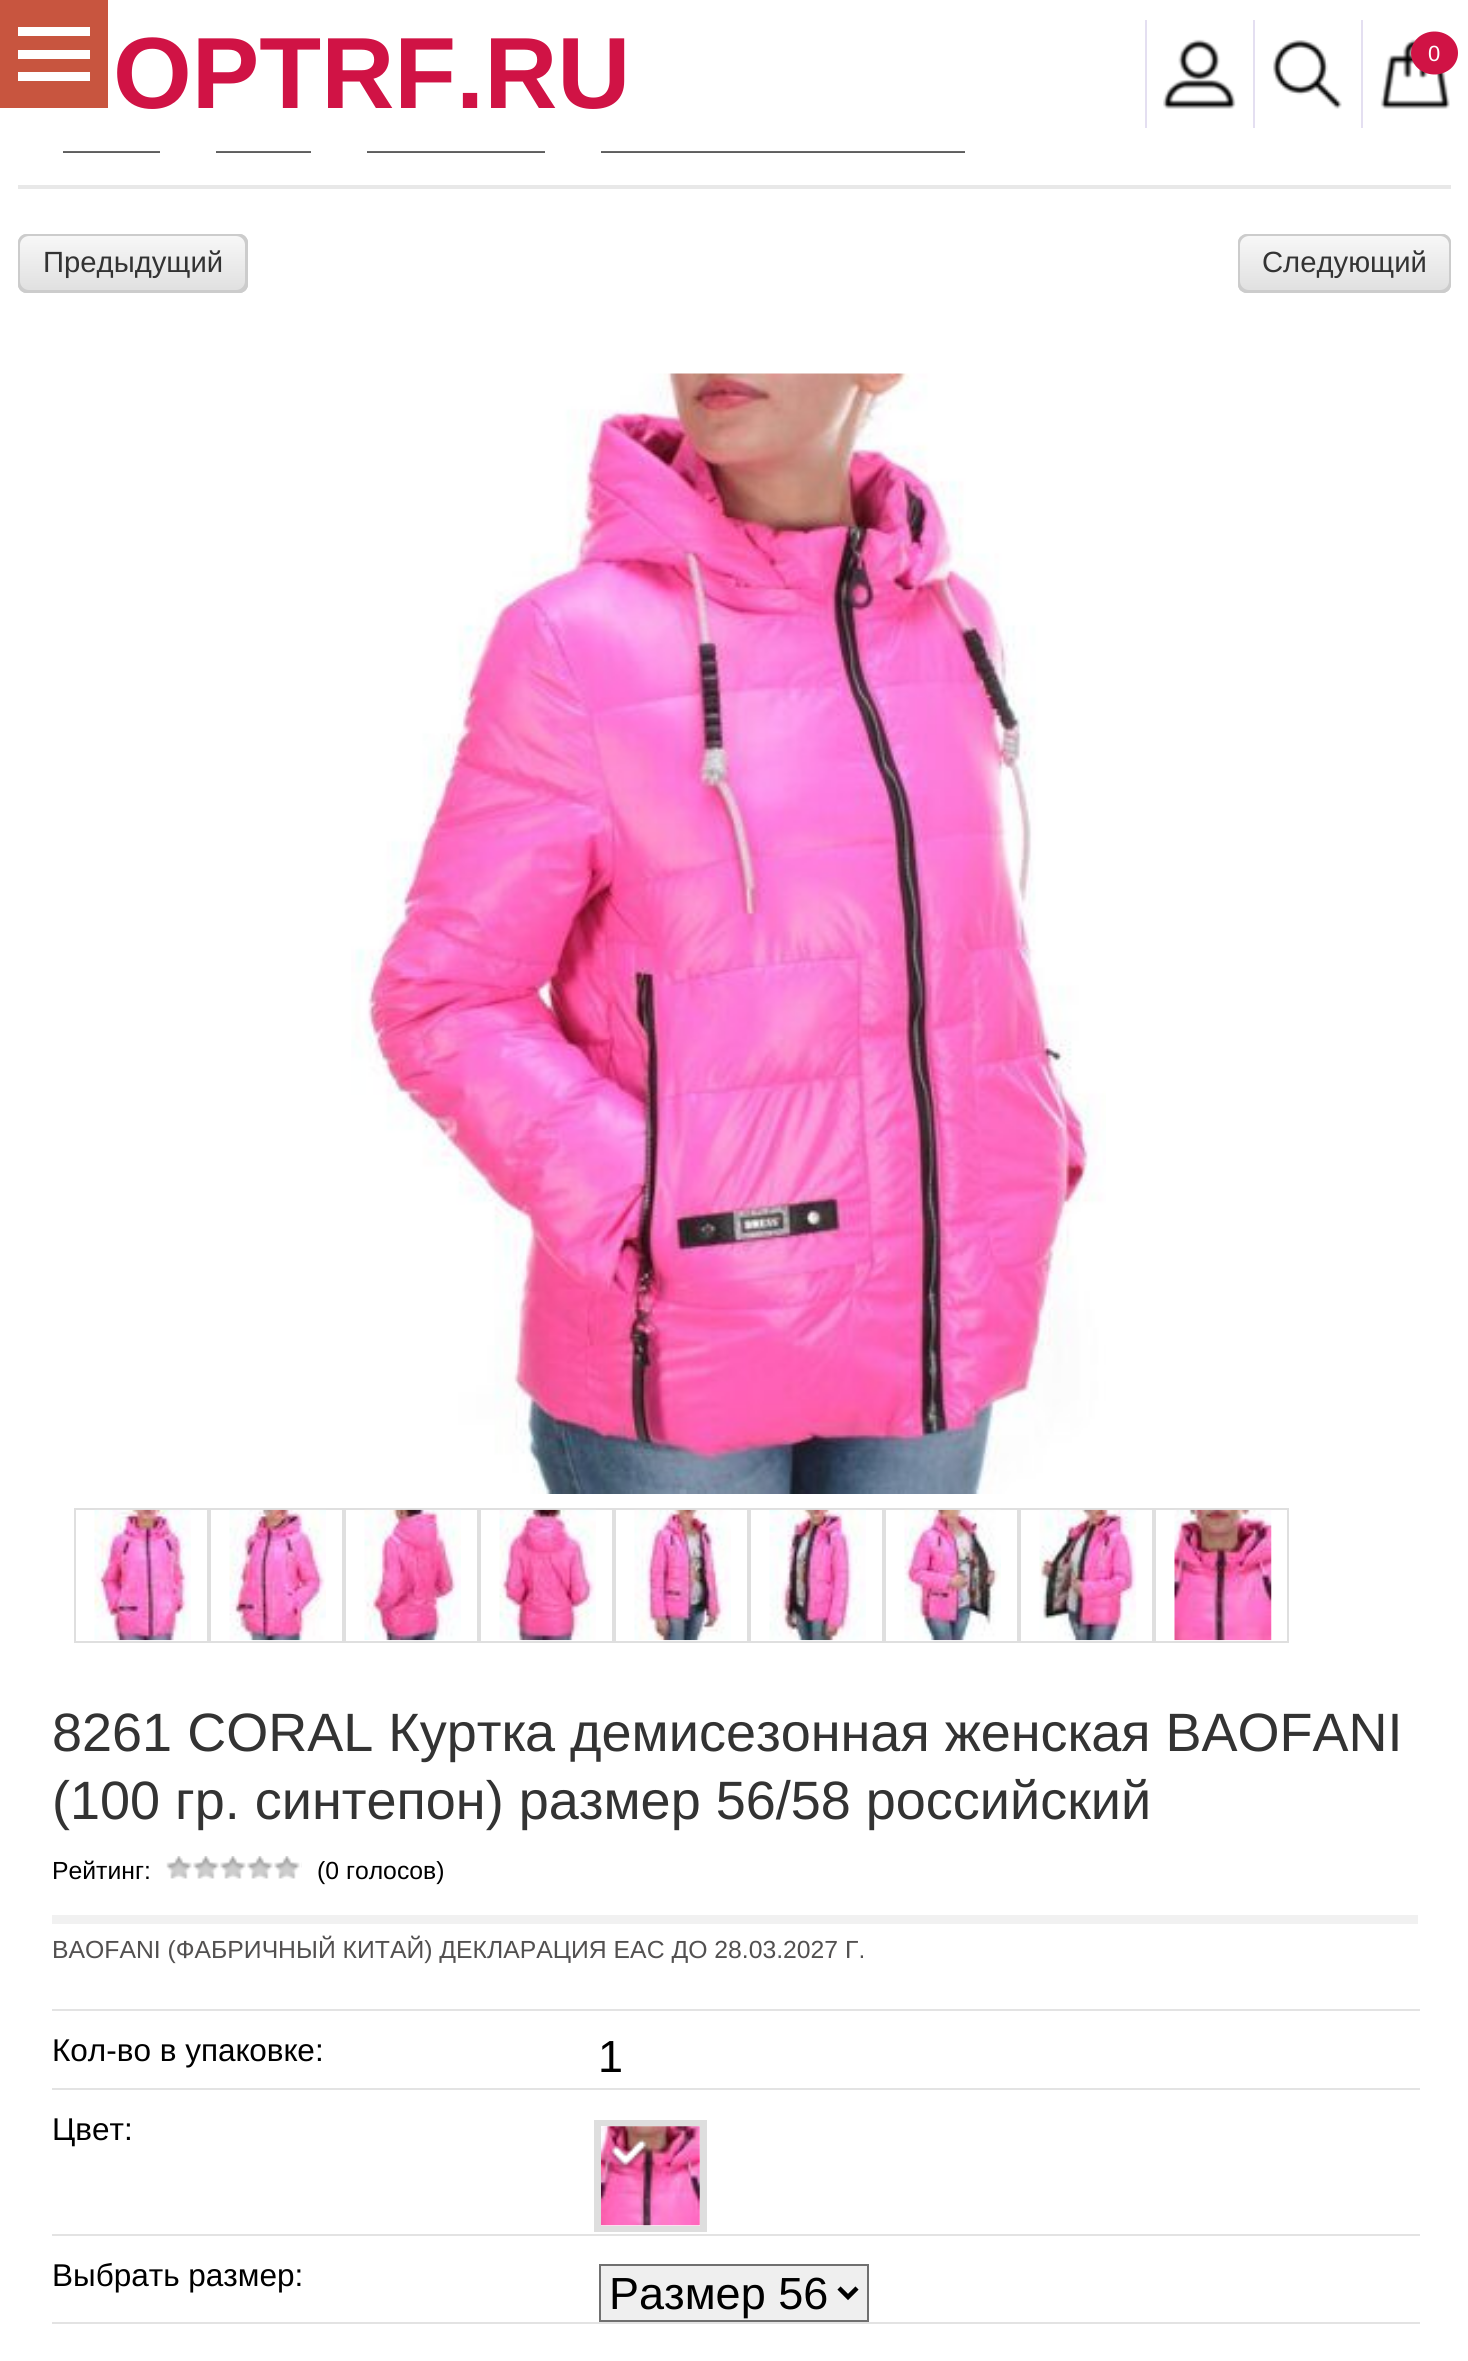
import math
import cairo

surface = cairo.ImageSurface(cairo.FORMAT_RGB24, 1468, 2361)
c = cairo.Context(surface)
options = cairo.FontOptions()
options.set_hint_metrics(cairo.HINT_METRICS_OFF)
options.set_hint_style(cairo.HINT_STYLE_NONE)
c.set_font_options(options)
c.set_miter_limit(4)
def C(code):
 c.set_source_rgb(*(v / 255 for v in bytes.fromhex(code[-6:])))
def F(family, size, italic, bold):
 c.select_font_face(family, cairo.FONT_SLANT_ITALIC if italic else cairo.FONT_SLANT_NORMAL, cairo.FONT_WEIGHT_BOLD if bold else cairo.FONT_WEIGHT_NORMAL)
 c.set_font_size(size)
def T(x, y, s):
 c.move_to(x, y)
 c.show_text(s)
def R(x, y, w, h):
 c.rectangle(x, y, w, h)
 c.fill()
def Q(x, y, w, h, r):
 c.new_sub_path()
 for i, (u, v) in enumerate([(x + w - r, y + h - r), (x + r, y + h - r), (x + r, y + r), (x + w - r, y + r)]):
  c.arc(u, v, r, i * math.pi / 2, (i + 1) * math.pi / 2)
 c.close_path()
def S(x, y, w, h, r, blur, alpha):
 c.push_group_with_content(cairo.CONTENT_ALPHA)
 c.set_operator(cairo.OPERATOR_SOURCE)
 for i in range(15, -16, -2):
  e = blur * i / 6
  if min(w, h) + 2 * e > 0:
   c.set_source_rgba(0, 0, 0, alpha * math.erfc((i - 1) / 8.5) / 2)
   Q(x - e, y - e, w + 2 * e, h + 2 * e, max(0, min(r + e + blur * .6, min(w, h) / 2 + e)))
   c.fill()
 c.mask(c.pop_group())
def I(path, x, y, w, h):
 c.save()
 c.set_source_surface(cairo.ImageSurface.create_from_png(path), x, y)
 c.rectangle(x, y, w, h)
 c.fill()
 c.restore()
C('ffffff')
c.paint()
C('e8e8e8')
R(18,185,1433,4)
C('000000')
R(63,151,97,2)
R(216,151,95,2)
R(367,151,178,2)
R(601,151,364,2)
C('ffffff')
S(-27,-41,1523,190,0,13.5,1)
C('c8553f')
R(0,0,108,108)
C('ffffff')
R(18,50,72,9)
R(18,27,72,9)
R(18,72,72,9)
F('Liberation Sans',101.25,0,1)
C('d01345')
T(113,108,'OPTRF.RU')
C('e4dff1')
R(1145,20,2,108)
I('1.png',1163,39,73,70)
R(1253,20,2,108)
I('2.png',1273,40,69,69)
R(1361,20,2,108)
I('3.png',1380,39,70,70)
C('d01345')
c.new_path()
c.move_to(1434.5,31.5)
c.curve_to(1447.5,31.5,1458,41,1458,53)
c.curve_to(1458,65,1447.5,74.5,1434.5,74.5)
c.curve_to(1421.5,74.5,1411,65,1411,53)
c.curve_to(1411,41,1421.5,31.5,1434.5,31.5)
c.close_path()
c.fill()
F('Liberation Sans',22,0,0)
C('ffffff')
T(1428,61,'0')
gradient = cairo.LinearGradient(133,234,133,293)
gradient.add_color_stop_rgba(0,0.973,0.973,0.973,1)
gradient.add_color_stop_rgba(1,0.875,0.875,0.875,1)
c.set_source(gradient)
Q(18,234,230,59,9)
c.fill()
C('cccccc')
c.new_path()
c.move_to(22,236)
c.curve_to(19,237,18,240,18,243)
c.line_to(18,284)
c.curve_to(18,289,22,293,27,293)
c.line_to(239,293)
c.curve_to(243,293,246,291,247,287)
c.curve_to(246,289,243,290,241,290)
c.line_to(29,290)
c.curve_to(24,290,20,286,20,281)
c.line_to(20,241)
c.curve_to(20,239,21,237,22,236)
c.close_path()
c.fill()
c.new_path()
c.move_to(25,236)
c.line_to(236,236)
c.curve_to(241,236,245,240,245,245)
c.line_to(245,286)
c.curve_to(245,288,244,291,242,292)
c.curve_to(246,291,248,288,248,284)
c.line_to(248,243)
c.curve_to(248,238,244,234,239,234)
c.line_to(27,234)
c.curve_to(24,234,21,235,20,238)
c.curve_to(21,237,23,236,25,236)
c.close_path()
c.fill()
c.new_path()
c.move_to(19,287)
c.curve_to(20,291,23,293,27,293)
c.line_to(239,293)
c.curve_to(244,293,248,289,248,284)
c.line_to(248,243)
c.curve_to(248,239,246,236,242,235)
c.curve_to(244,236,245,239,245,241)
c.line_to(245,281)
c.curve_to(245,286,241,290,236,290)
c.line_to(25,290)
c.curve_to(23,290,20,289,19,287)
c.close_path()
c.fill()
c.new_path()
c.move_to(29,236)
c.line_to(241,236)
c.curve_to(243,236,245,237,246,238)
c.curve_to(245,235,242,234,239,234)
c.line_to(27,234)
c.curve_to(22,234,18,238,18,243)
c.line_to(18,284)
c.curve_to(18,287,19,290,22,291)
c.curve_to(21,290,20,288,20,286)
c.line_to(20,245)
c.curve_to(20,240,24,236,29,236)
c.close_path()
c.fill()
F('Liberation Sans',29.25,0,0)
C('333333')
T(43,272,'Предыдущий')
gradient = cairo.LinearGradient(1344,234,1344,293)
gradient.add_color_stop_rgba(0,0.973,0.973,0.973,1)
gradient.add_color_stop_rgba(1,0.875,0.875,0.875,1)
c.set_source(gradient)
Q(1238,234,213,59,9)
c.fill()
C('cccccc')
c.new_path()
c.move_to(1242,236)
c.curve_to(1239,237,1238,240,1238,243)
c.line_to(1238,284)
c.curve_to(1238,289,1242,293,1247,293)
c.line_to(1442,293)
c.curve_to(1446,293,1449,291,1450,288)
c.curve_to(1448,289,1446,290,1444,290)
c.line_to(1249,290)
c.curve_to(1244,290,1240,286,1240,281)
c.line_to(1240,241)
c.curve_to(1240,239,1241,237,1242,236)
c.close_path()
c.fill()
c.new_path()
c.move_to(1244,236)
c.line_to(1440,236)
c.curve_to(1445,236,1449,240,1449,245)
c.line_to(1449,286)
c.curve_to(1449,288,1448,290,1447,291)
c.curve_to(1450,290,1451,287,1451,284)
c.line_to(1451,243)
c.curve_to(1451,238,1447,234,1442,234)
c.line_to(1247,234)
c.curve_to(1245,234,1242,235,1241,237)
c.close_path()
c.fill()
c.new_path()
c.move_to(1239,289)
c.curve_to(1241,291,1244,293,1247,293)
c.line_to(1442,293)
c.curve_to(1447,293,1451,289,1451,284)
c.line_to(1451,243)
c.curve_to(1451,240,1450,237,1447,236)
c.curve_to(1448,237,1449,239,1449,241)
c.line_to(1449,281)
c.curve_to(1449,286,1445,290,1440,290)
c.line_to(1244,290)
c.curve_to(1242,290,1241,290,1239,289)
c.close_path()
c.fill()
c.new_path()
c.move_to(1249,236)
c.line_to(1444,236)
c.curve_to(1446,236,1447,236,1449,237)
c.curve_to(1447,235,1445,234,1442,234)
c.line_to(1247,234)
c.curve_to(1242,234,1238,238,1238,243)
c.line_to(1238,284)
c.curve_to(1238,287,1239,290,1242,291)
c.curve_to(1241,290,1240,288,1240,286)
c.line_to(1240,245)
c.curve_to(1240,240,1244,236,1249,236)
c.close_path()
c.fill()
C('333333')
T(1262,272,'Следующий')
I('4.png',351,373,755,1121)
c.rectangle(75,1509,133,133)
C('dfdfdf')
c.stroke()
I('5.png',94,1509,97,132)
c.rectangle(210,1509,133,133)
c.stroke()
I('6.png',229,1509,97,132)
c.rectangle(345,1509,133,133)
c.stroke()
I('7.png',364,1509,97,132)
c.rectangle(480,1509,133,133)
c.stroke()
I('8.png',499,1509,97,132)
c.rectangle(615,1509,133,133)
c.stroke()
I('9.png',634,1509,97,132)
c.rectangle(750,1509,133,133)
c.stroke()
I('10.png',769,1509,97,132)
c.rectangle(885,1509,133,133)
c.stroke()
I('11.png',904,1509,97,132)
c.rectangle(1020,1509,133,133)
c.stroke()
I('12.png',1039,1509,98,132)
c.rectangle(1155,1509,133,133)
c.stroke()
I('13.png',1174,1509,98,132)
C('f1f1f1')
R(52,1915,1366,9)
F('Liberation Sans',54,0,0)
C('333333')
T(52,1751,'8261 CORAL Куртка демисезонная женская BAOFANI')
T(52,1819,'(100 гр. синтепон) размер 56/58 российский')
F('Liberation Sans',24.75,0,0)
C('000000')
T(52,1879,'Рейтинг:')
I('14.png',166,1856,136,23)
T(317,1879,'(0 голосов)')
C('525050')
T(52,1958,'BAOFANI (ФАБРИЧНЫЙ КИТАЙ) ДЕКЛАРАЦИЯ EAC ДО 28.03.2027 Г.')
F('Liberation Sans',31.5,0,0)
C('000000')
T(52,2061,'Кол-во в упаковке:')
C('e3e3e3')
R(52,2009,1368,2)
F('Liberation Sans',45,0,0)
C('000000')
T(598,2072,'1')
C('e3e3e3')
R(52,2088,1368,2)
I('15.png',601,2126,99,100)
c.rectangle(600,2125,101,102)
C('dedede')
c.stroke()
I('16.png',608,2139,42,32)
c.rectangle(596.5,2122.5,108,107)
c.set_line_width(5)
c.stroke()
F('Liberation Sans',31.5,0,0)
C('000000')
T(52,2140,'Цвет:')
T(52,2286,'Выбрать размер:')
C('e3e3e3')
R(52,2234,1368,2)
C('efefef')
c.rectangle(600,2265,268,56)
c.fill_preserve()
C('707070')
c.set_line_width(2)
c.stroke()
c.new_path()
c.move_to(839,2288)
c.line_to(848,2297)
c.line_to(857,2288)
C('000000')
c.set_line_width(4.5)
c.stroke()
F('Liberation Sans',45,0,0)
T(609,2309,'Размер 56')
C('e3e3e3')
R(52,2322,1368,2)
surface.write_to_png('o.png')
